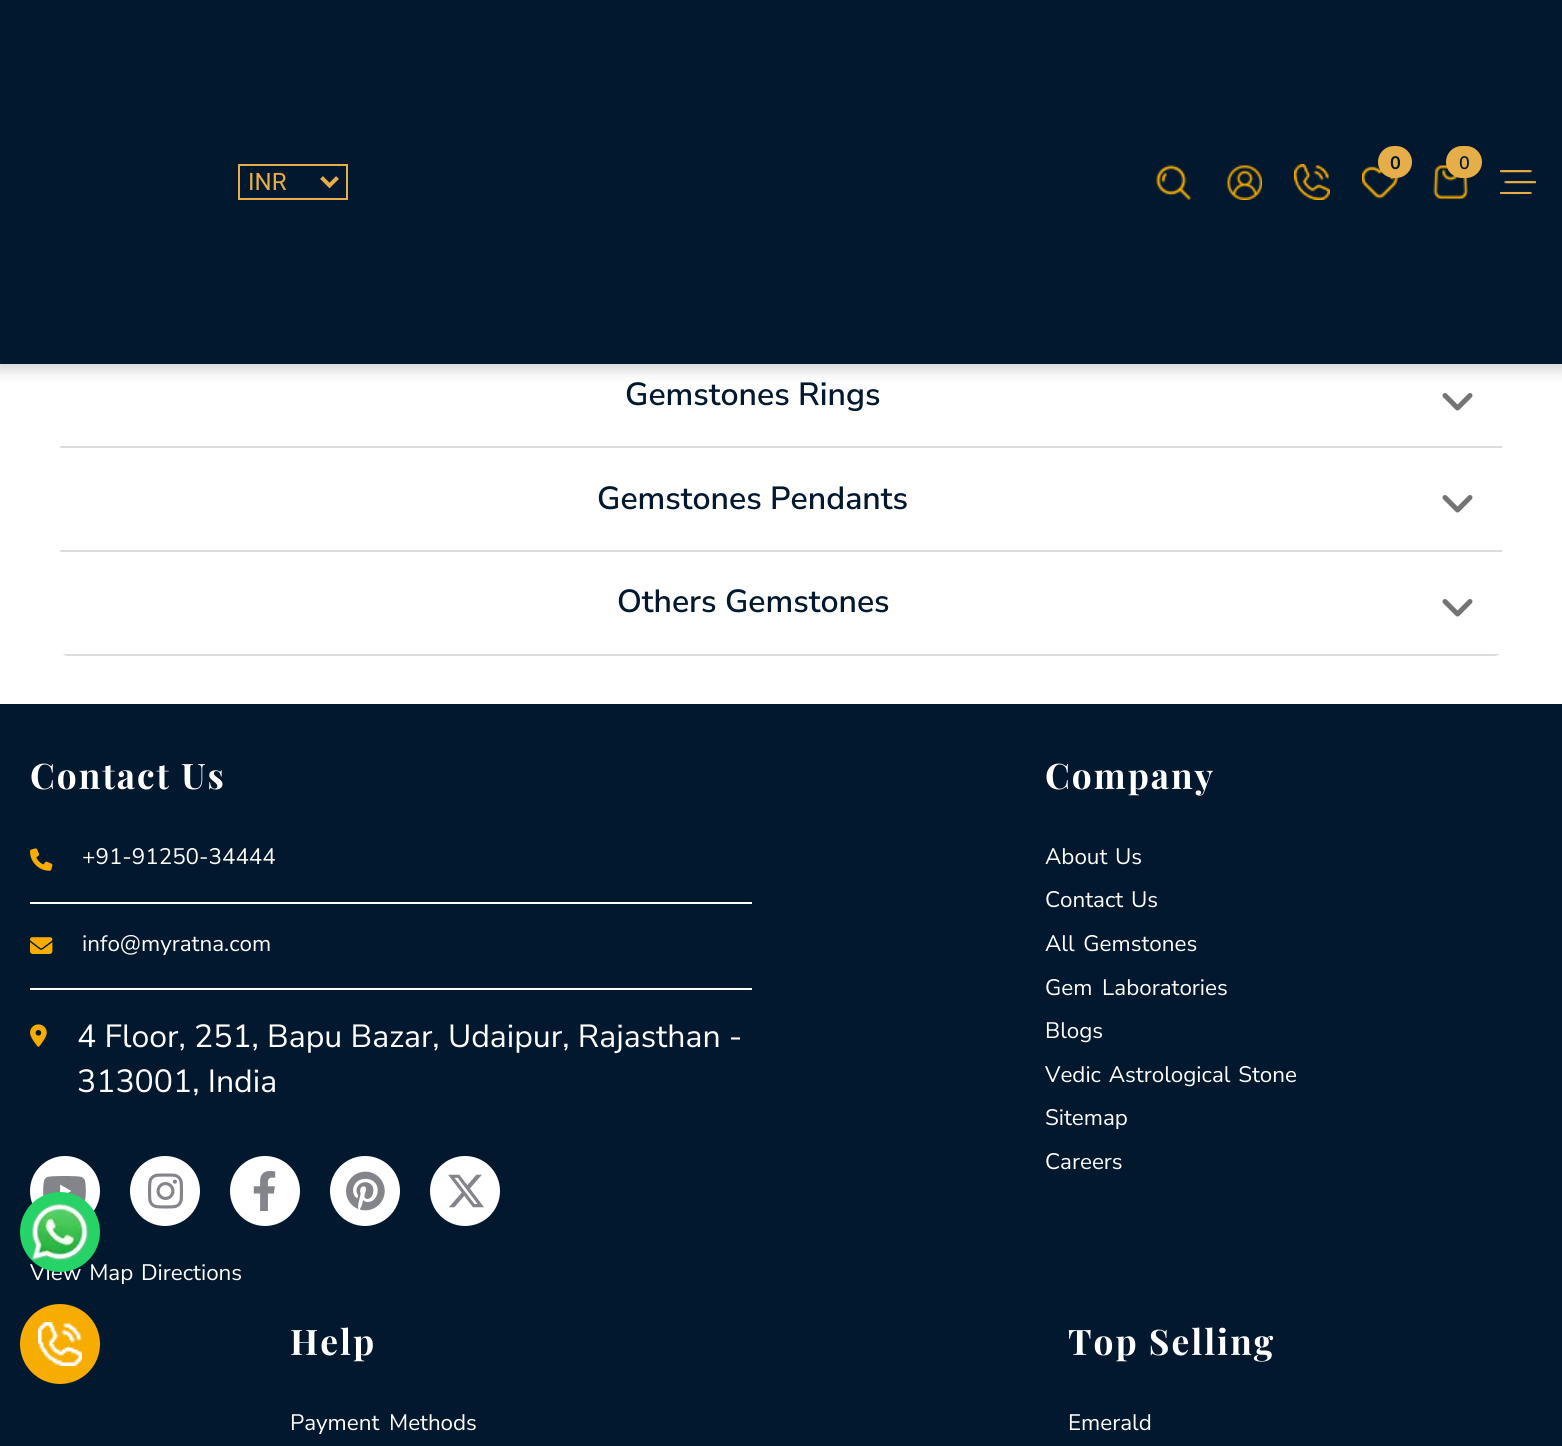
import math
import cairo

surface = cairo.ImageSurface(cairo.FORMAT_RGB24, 1562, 1446)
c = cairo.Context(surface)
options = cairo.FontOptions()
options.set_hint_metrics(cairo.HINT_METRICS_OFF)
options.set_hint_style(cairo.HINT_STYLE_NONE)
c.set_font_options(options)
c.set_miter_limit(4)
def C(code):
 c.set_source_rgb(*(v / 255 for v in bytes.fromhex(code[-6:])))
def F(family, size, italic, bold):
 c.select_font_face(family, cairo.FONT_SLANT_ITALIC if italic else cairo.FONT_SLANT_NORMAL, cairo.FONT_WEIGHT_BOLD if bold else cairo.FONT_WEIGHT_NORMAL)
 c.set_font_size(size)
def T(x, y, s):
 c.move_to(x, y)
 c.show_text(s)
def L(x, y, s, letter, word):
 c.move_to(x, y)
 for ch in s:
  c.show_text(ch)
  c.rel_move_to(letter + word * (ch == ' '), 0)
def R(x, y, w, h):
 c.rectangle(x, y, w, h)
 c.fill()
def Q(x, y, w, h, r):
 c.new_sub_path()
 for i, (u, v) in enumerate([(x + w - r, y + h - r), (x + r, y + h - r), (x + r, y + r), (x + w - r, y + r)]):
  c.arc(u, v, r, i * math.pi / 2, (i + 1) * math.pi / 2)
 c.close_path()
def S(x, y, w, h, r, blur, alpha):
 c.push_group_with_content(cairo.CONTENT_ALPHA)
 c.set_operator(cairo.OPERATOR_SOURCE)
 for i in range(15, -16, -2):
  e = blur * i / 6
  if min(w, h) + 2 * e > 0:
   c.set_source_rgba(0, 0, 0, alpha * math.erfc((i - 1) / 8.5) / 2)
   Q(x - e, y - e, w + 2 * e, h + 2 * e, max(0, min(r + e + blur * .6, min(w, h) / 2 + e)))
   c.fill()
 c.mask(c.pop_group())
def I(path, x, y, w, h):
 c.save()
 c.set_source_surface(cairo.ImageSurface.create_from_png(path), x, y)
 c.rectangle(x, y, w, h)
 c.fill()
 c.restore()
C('01182e')
c.paint()
C('ffffff')
R(0,364,1562,340)
C('000000')
S(-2,2,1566,368,0,7,.18)
C('01182e')
R(0,0,1562,364)
I('1.png',1156,165,35,35)
I('2.png',1227,165,35,35)
I('3.png',1294,164,36,36)
I('4.png',1362,166,36,33)
C('e6ae48')
Q(1378,146,34,32,16)
c.fill()
F('Nunito Sans',18,0,1)
C('01182e')
T(1390,169,'0')
I('5.png',1433,165,35,35)
C('e6ae48')
Q(1446,146,36,32,16)
c.fill()
F('Nunito Sans SemiBold',18,0,0)
C('01182e')
T(1459,169,'0')
I('6.png',1500,170,36,24)
c.rectangle(239,165,108,34)
C('e6ae48')
c.stroke()
c.new_path()
c.move_to(321.5,177.5)
c.line_to(329.5,185.5)
c.line_to(337.5,177.5)
c.set_line_width(4)
c.stroke()
F('Roboto',24,0,0)
T(248,190,'INR')
C('dbdbdb')
R(60,446,1442,2)
F('Nunito Sans SemiBold',32,0,0)
C('01182e')
T(625,405,'Gemstones Rings')
I('7.png',1442,393,31,18)
C('dbdbdb')
R(60,550,1442,2)
C('01182e')
T(597,509,'Gemstones Pendants')
I('7.png',1442,495,31,18)
c.save()
c.new_path()
c.move_to(60,552)
c.line_to(1502,552)
c.line_to(1502,648)
c.curve_to(1502,652.5,1498.5,656,1494,656)
c.line_to(68,656)
c.curve_to(63.5,656,60,652.5,60,648)
c.close_path()
c.clip()
C('dbdbdb')
R(60,654,1442,2)
c.restore()
T(617,612,'Others Gemstones')
I('7.png',1442,599,31,18)
F('Playfair Display',35.25,0,1)
C('ffffff')
L(30,789,'Contact Us',2,0)
R(30,902,722,2)
I('8.png',30,848,23,23)
F('Nunito Sans',22.4,0,0)
T(82,864,'+91-91250-34444')
R(30,988,722,2)
I('9.png',30,937,23,17)
T(82,951,'info@myratna.com')
I('10.png',30,1024,17,23)
F('Nunito Sans',32,0,0)
T(77,1047,'4 Floor, 251, Bapu Bazar, Udaipur, Rajasthan -')
T(77,1092,'313001, India')
c.new_path()
c.arc(65,1191,35,0,2 * math.pi)
c.fill()
I('11.png',43,1176,43,25)
c.arc(165,1191,35,0,2 * math.pi)
c.fill()
I('12.png',148,1173,35,36)
c.arc(265,1191,35,0,2 * math.pi)
c.fill()
I('13.png',253,1171,23,40)
c.arc(365,1191,35,0,2 * math.pi)
c.fill()
I('14.png',346,1171,39,40)
c.arc(465,1191,35,0,2 * math.pi)
c.fill()
I('15.png',448,1174,36,34)
F('Nunito Sans',22.4,0,0)
L(30,1280,'View Map Directions',0,2)
F('Playfair Display',35.25,0,1)
L(1045,789,'Company',2,0)
F('Nunito Sans',22.4,0,0)
L(1045,864,'About Us',0,2)
L(1045,907,'Contact Us',0,2)
L(1045,951,'All Gemstones',0,3)
L(1045,995,'Gem Laboratories',0,4)
T(1045,1038,'Blogs')
L(1045,1082,'Vedic Astrological Stone',0,2)
T(1045,1125,'Sitemap')
T(1045,1169,'Careers')
F('Playfair Display',35.25,0,1)
L(290,1355,'Help',2,0)
F('Nunito Sans',22.4,0,0)
L(290,1430,'Payment Methods',0,4)
F('Playfair Display',35.25,0,1)
L(1068,1355,'Top Selling',2,0)
F('Nunito Sans',22.4,0,0)
T(1068,1430,'Emerald')
C('25d366')
c.new_path()
c.arc(60,1232,40,0,2 * math.pi)
c.fill()
I('16.png',31,1203,58,58)
C('f6ac00')
c.arc(60,1344,40,0,2 * math.pi)
c.fill()
I('17.png',38,1322,44,44)
surface.write_to_png('o.png')
